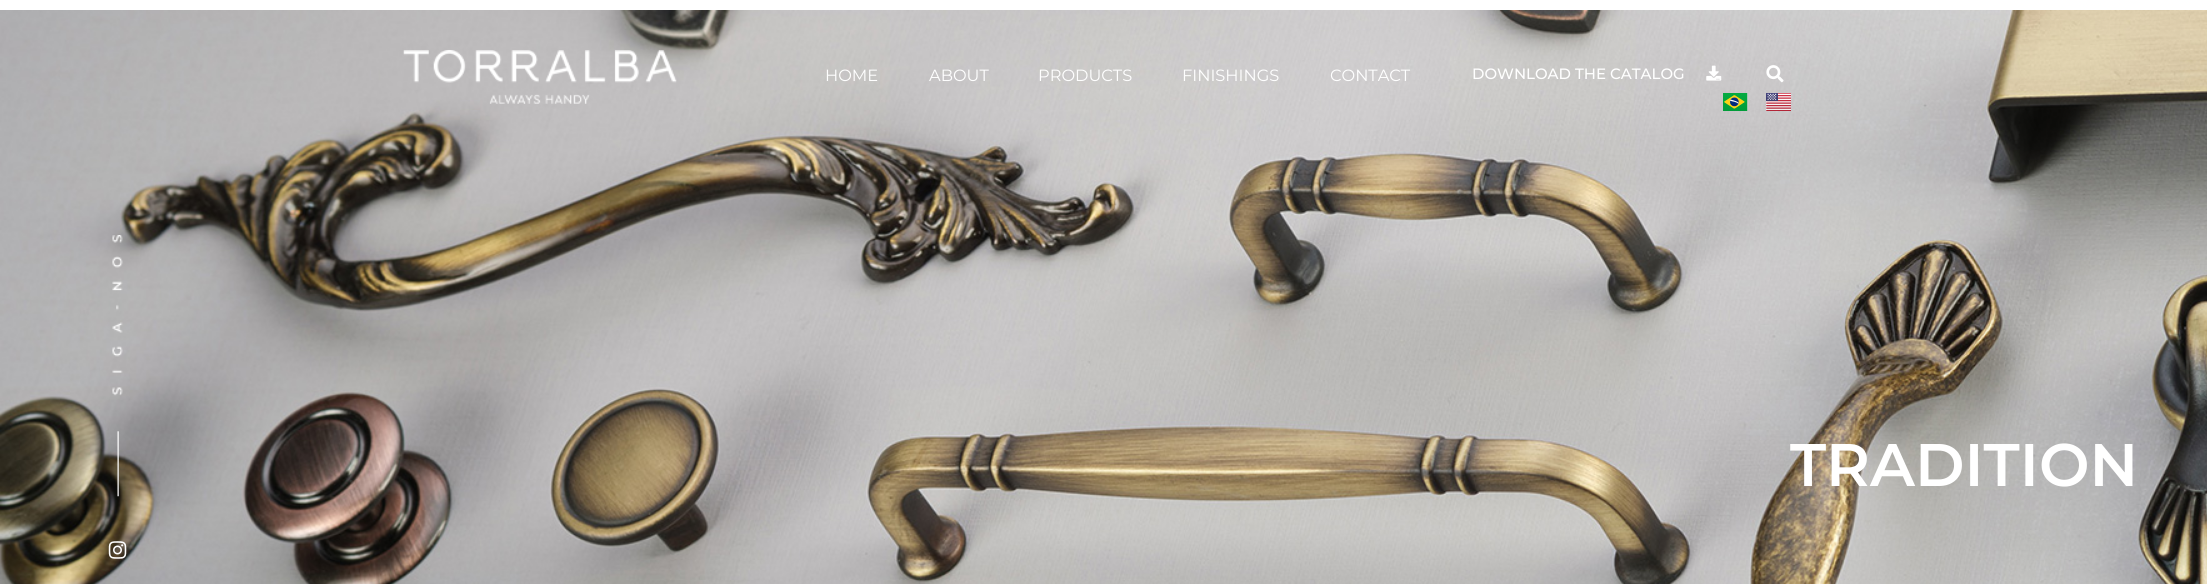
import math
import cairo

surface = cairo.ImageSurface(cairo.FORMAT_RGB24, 2207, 584)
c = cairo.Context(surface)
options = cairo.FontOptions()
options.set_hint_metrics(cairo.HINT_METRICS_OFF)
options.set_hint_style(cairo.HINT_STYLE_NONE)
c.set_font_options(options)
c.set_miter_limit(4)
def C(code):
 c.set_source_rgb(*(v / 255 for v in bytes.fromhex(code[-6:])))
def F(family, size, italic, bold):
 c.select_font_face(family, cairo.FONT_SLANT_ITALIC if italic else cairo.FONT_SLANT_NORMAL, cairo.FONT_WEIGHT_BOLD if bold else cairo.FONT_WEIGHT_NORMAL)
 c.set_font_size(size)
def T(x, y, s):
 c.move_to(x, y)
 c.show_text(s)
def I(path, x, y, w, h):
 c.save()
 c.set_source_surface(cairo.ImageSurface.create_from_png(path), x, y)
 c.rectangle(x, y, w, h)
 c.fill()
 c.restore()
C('ffffff')
c.paint()
I('6.png',0,10,2207,574)
I('1.png',403,50,274,54)
F('Montserrat',16.25,0,0)
C('ffffff')
T(825,81,'HOME')
T(929,81,'ABOUT')
T(1038,81,'PRODUCTS')
T(1182,81,'FINISHINGS')
T(1330,81,'CONTACT')
F('Montserrat Medium',15,0,0)
T(1472,79,'DOWNLOAD THE CATALOG')
I('2.png',1706,65,16,16)
I('3.png',1766,65,18,18)
I('4.png',1723,93,25,18)
I('5.png',1766,93,25,18)
I('7.png',112,235,11,262)
I('8.png',108,541,19,18)
F('Montserrat SemiBold',60,0,0)
T(1790,486,'TRADITION')
surface.write_to_png('o.png')
